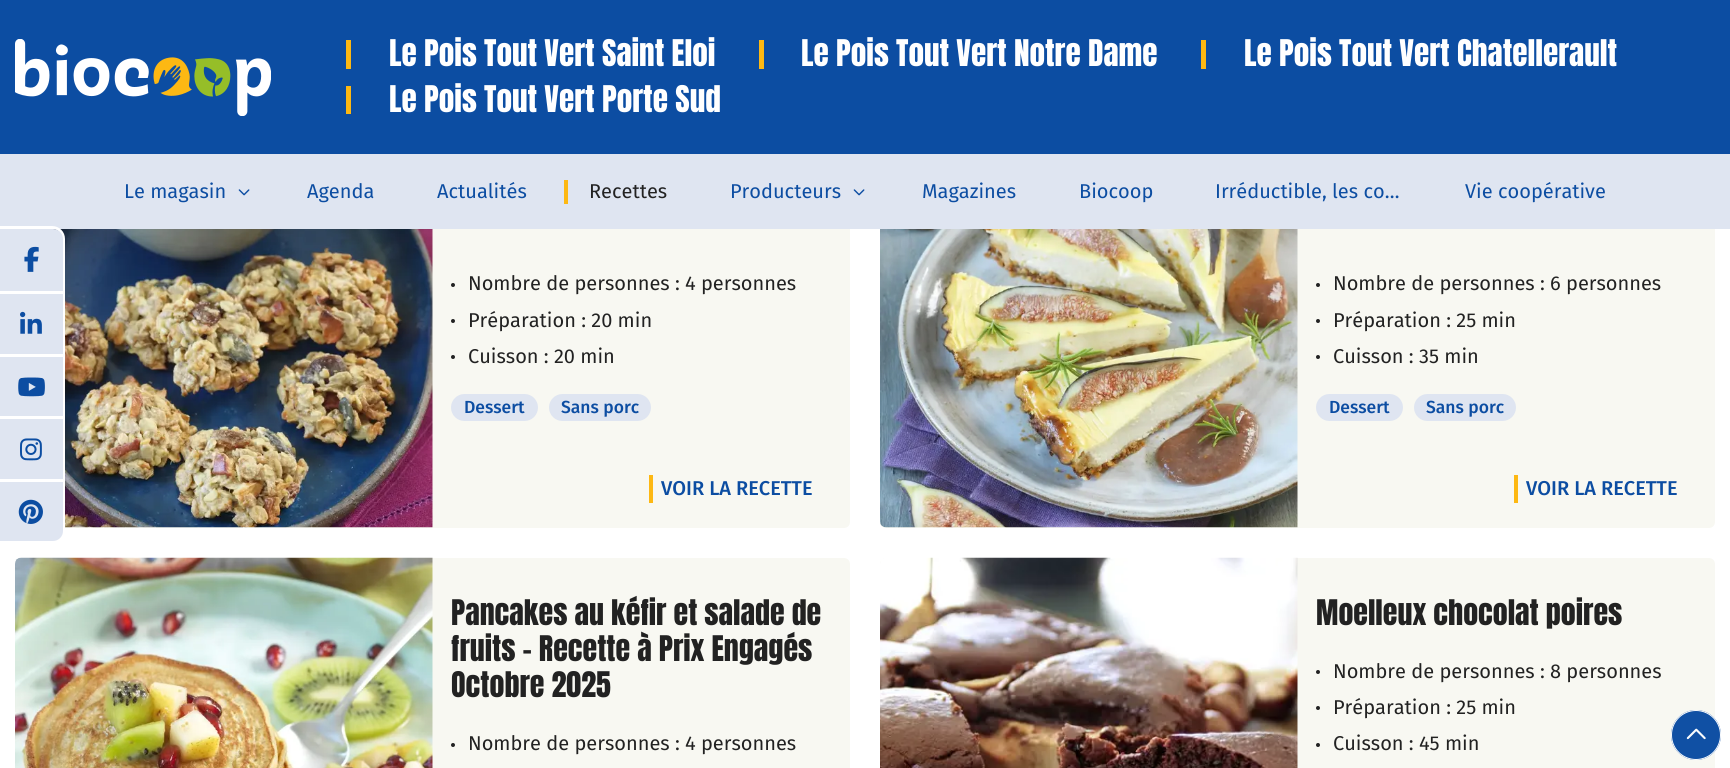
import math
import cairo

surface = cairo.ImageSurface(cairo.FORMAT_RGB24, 1730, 768)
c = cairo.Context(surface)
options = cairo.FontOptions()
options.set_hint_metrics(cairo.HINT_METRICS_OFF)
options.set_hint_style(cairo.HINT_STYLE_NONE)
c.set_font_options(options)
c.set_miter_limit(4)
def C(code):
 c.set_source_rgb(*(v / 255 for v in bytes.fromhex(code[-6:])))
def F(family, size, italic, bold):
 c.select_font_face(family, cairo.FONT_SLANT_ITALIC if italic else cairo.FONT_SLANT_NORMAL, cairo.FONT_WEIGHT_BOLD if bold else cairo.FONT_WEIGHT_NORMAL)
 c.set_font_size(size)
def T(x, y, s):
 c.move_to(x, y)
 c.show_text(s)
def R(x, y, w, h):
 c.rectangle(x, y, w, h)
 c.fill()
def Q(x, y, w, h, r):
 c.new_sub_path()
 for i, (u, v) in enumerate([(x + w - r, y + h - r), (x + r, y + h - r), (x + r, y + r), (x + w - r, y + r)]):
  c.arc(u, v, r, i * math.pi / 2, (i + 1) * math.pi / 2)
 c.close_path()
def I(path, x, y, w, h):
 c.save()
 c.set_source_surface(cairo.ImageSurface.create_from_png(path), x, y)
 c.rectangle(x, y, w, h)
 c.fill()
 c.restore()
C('ffffff')
c.paint()
C('f8f8f2')
Q(15,135,835,393,6)
c.fill()
Q(880,135,835,393,6)
c.fill()
C('0c4da2')
R(0,0,1730,154)
I('1.png',15,39,256,77)
C('fdb813')
R(346,40,5,29)
F('Anton',31.25,0,0)
C('ffffff')
T(389,66,'Le Pois Tout Vert Saint Eloi')
C('fdb813')
R(759,40,5,29)
C('ffffff')
T(801,66,'Le Pois Tout Vert Notre Dame')
C('fdb813')
R(1201,40,5,29)
C('ffffff')
T(1244,66,'Le Pois Tout Vert Chatellerault')
C('fdb813')
R(346,86,5,28)
C('ffffff')
T(389,112,'Le Pois Tout Vert Porte Sud')
C('dfe5f1')
R(0,154,1730,75)
F('Fira Sans',20,0,0)
C('0c4da2')
T(124,198,'Le magasin')
I('2.png',238,189,12,7)
T(307,198,'Agenda')
T(437,198,'Actualités')
C('fdb813')
R(564,180,4,24)
C('222222')
T(589,198,'Recettes')
C('0c4da2')
T(730,198,'Producteurs')
I('2.png',853,189,12,7)
T(922,198,'Magazines')
T(1079,198,'Biocoop')
T(1215,198,'Irréductible, les co…')
T(1465,198,'Vie coopérative')
C('f8f8f2')
Q(880,558,835,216,6)
c.fill()
c.set_source_rgba(0.047,0.302,0.635,0.98)
c.arc(1696,735,25,0,2 * math.pi)
c.fill()
c.arc(1696,735,24.5,0,2 * math.pi)
c.set_source_rgba(1,1,1,0.98)
c.set_line_width(1)
c.stroke()
I('3.png',1686,728,20,12)
I('9.png',53,229,380,299)
c.new_path()
c.move_to(-.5,227.5)
c.line_to(52,227.5)
c.curve_to(58.5,227.5,63.5,232.5,63.5,239)
c.line_to(63.5,531)
c.curve_to(63.5,537.5,58.5,542.5,52,542.5)
c.line_to(-.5,542.5)
c.close_path()
C('ffffff')
c.set_line_width(3)
c.stroke()
C('dfe5f1')
c.new_path()
c.move_to(0,229)
c.line_to(53,229)
c.curve_to(58.5,229,63,233.5,63,239)
c.line_to(63,291)
c.line_to(0,291)
c.close_path()
c.fill()
I('4.png',24,246,15,26)
R(0,294,63,60)
C('ffffff')
R(15,291,48,3)
I('5.png',20,311,22,23)
C('dfe5f1')
R(0,357,63,59)
C('ffffff')
R(15,354,48,3)
I('6.png',18,377,27,20)
C('dfe5f1')
R(0,419,63,60)
C('ffffff')
R(15,416,48,3)
I('7.png',20,438,22,23)
C('dfe5f1')
c.new_path()
c.move_to(0,481)
c.line_to(63,481)
c.line_to(63,531)
c.curve_to(63,536.5,58.5,541,53,541)
c.line_to(0,541)
c.close_path()
c.fill()
C('ffffff')
R(0,479,63,3)
I('8.png',18,499,25,25)
C('222222')
c.arc(453,285,2,0,2 * math.pi)
c.fill()
T(468,290,'Nombre de personnes : 4 personnes')
c.new_path()
c.arc(453,321,2,0,2 * math.pi)
c.fill()
T(468,327,'Préparation : 20 min')
c.new_path()
c.arc(453,357,2,0,2 * math.pi)
c.fill()
T(468,363,'Cuisson : 20 min')
C('dfe5f1')
Q(451,394,87,27,13.5)
c.fill()
F('Fira Sans Medium',17.5,0,0)
C('0c4da2')
T(464,413,'Dessert')
C('dfe5f1')
Q(549,394,102,27,13.5)
c.fill()
C('0c4da2')
T(561,413,'Sans porc')
C('fdb813')
R(649,475,4,28)
F('Fira Sans Medium',20,0,0)
C('0c4da2')
T(661,495,'VOIR LA RECETTE')
I('10.png',880,229,418,299)
C('222222')
c.arc(1318,285,2,0,2 * math.pi)
c.fill()
F('Fira Sans',20,0,0)
T(1333,290,'Nombre de personnes : 6 personnes')
c.new_path()
c.arc(1318,321,2,0,2 * math.pi)
c.fill()
T(1333,327,'Préparation : 25 min')
c.new_path()
c.arc(1318,357,2,0,2 * math.pi)
c.fill()
T(1333,363,'Cuisson : 35 min')
C('dfe5f1')
Q(1316,394,87,27,13.5)
c.fill()
F('Fira Sans Medium',17.5,0,0)
C('0c4da2')
T(1329,413,'Dessert')
C('dfe5f1')
Q(1414,394,102,27,13.5)
c.fill()
C('0c4da2')
T(1426,413,'Sans porc')
C('fdb813')
R(1514,475,4,28)
F('Fira Sans Medium',20,0,0)
C('0c4da2')
T(1526,495,'VOIR LA RECETTE')
C('f8f8f2')
Q(15,558,835,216,6)
c.fill()
I('11.png',15,557,418,211)
F('Anton',30,0,0)
C('222222')
T(451,625,'Pancakes au kéfir et salade de')
T(451,661,'fruits - Recette à Prix Engagés')
T(451,697,'Octobre 2025')
c.new_path()
c.arc(453,745,2,0,2 * math.pi)
c.fill()
F('Fira Sans',20,0,0)
T(468,750,'Nombre de personnes : 4 personnes')
I('12.png',880,557,418,211)
F('Anton',30,0,0)
T(1316,625,'Moelleux chocolat poires')
c.new_path()
c.arc(1318,672,2,0,2 * math.pi)
c.fill()
F('Fira Sans',20,0,0)
T(1333,678,'Nombre de personnes : 8 personnes')
c.new_path()
c.arc(1318,708,2,0,2 * math.pi)
c.fill()
T(1333,714,'Préparation : 25 min')
c.new_path()
c.arc(1318,745,2,0,2 * math.pi)
c.fill()
T(1333,750,'Cuisson : 45 min')
surface.write_to_png('o.png')
